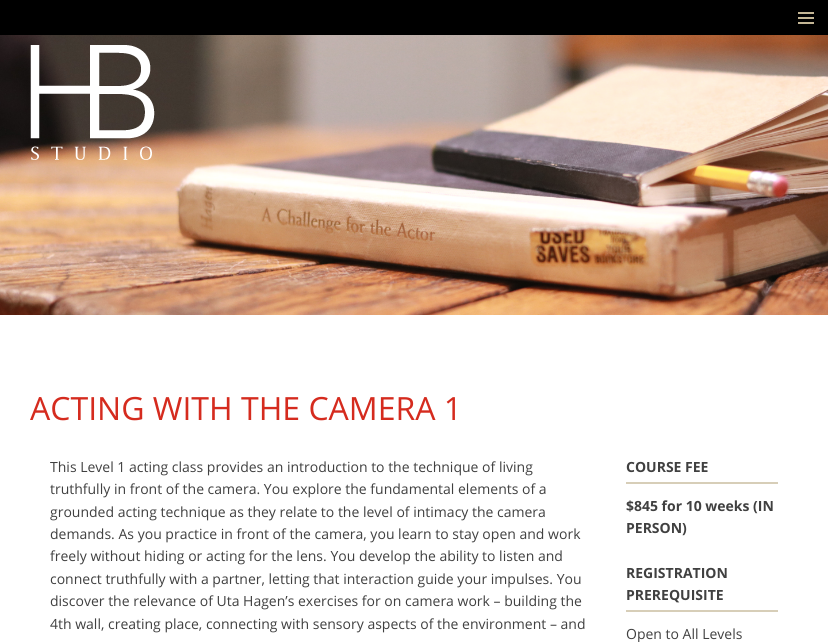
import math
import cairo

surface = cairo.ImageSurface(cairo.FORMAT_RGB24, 828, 642)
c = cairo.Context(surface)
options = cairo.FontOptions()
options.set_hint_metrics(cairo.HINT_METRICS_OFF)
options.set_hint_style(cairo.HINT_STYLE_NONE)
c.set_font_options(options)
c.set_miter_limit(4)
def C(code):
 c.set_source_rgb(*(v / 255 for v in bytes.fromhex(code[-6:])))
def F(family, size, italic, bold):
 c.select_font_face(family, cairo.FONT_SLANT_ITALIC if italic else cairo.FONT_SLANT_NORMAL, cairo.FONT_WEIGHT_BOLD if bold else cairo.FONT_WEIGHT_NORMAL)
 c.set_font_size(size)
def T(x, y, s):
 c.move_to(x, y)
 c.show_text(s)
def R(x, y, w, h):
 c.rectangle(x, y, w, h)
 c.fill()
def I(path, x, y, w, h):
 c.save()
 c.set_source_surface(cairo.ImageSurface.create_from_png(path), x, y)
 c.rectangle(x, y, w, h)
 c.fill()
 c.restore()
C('000000')
c.paint()
I('1.png',798,12,16,12)
I('2.png',0,35,828,280)
I('3.png',30,45,125,115)
C('ffffff')
R(0,315,828,327)
F('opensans',32,0,0)
C('d52b1e')
T(30,420,'ACTING WITH THE CAMERA 1')
F('opensans',14,0,0)
C('404040')
T(50,472,'This Level 1 acting class provides an introduction to the technique of living')
T(50,494,'truthfully in front of the camera. You explore the fundamental elements of a')
T(50,517,'grounded acting technique as they relate to the level of intimacy the camera')
T(50,539,'demands. As you practice in front of the camera, you learn to stay open and work')
T(50,561,'freely without hiding or acting for the lens. You develop the ability to listen and')
T(50,584,'connect truthfully with a partner, letting that interaction guide your impulses. You')
T(50,606,'discover the relevance of Uta Hagen’s exercises for on camera work – building the')
T(50,629,'4th wall, creating place, connecting with sensory aspects of the environment – and')
C('d7ceb8')
R(626,482,152,2)
F('opensans',14,0,1)
C('404040')
T(626,472,'COURSE FEE')
T(626,511,'$845 for 10 weeks (IN')
T(626,533,'PERSON)')
C('d7ceb8')
R(626,610,152,2)
C('404040')
T(626,578,'REGISTRATION')
T(626,600,'PREREQUISITE')
F('opensans',14,0,0)
T(626,639,'Open to All Levels')
surface.write_to_png('o.png')
